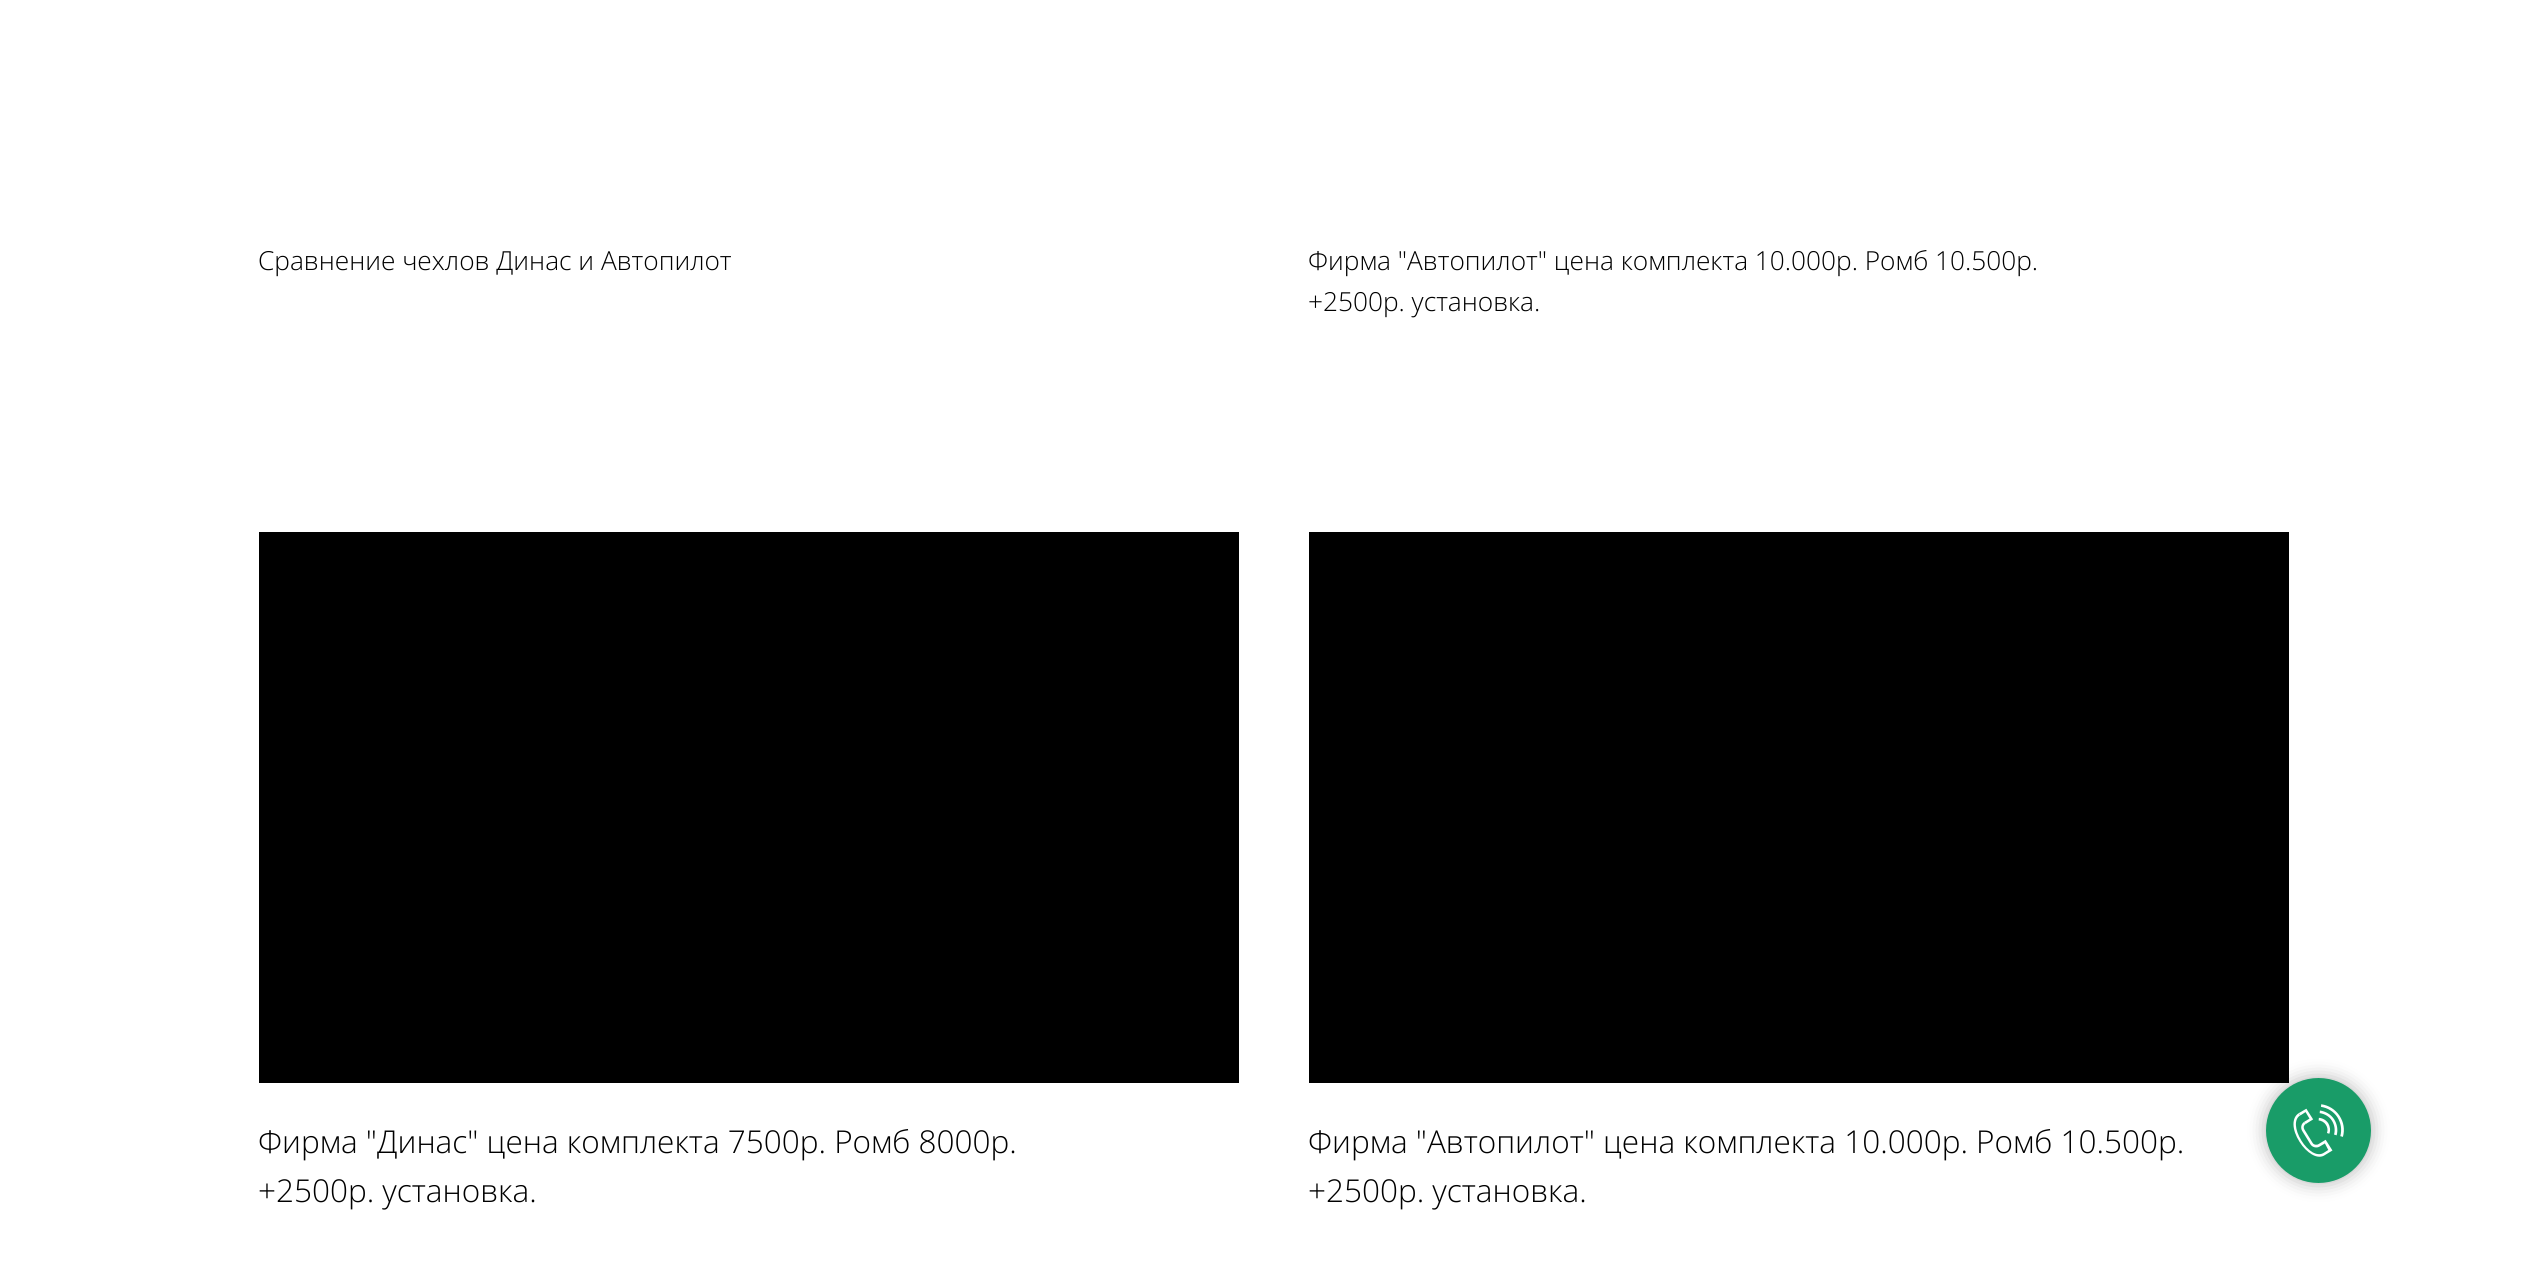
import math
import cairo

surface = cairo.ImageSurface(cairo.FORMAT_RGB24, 2545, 1269)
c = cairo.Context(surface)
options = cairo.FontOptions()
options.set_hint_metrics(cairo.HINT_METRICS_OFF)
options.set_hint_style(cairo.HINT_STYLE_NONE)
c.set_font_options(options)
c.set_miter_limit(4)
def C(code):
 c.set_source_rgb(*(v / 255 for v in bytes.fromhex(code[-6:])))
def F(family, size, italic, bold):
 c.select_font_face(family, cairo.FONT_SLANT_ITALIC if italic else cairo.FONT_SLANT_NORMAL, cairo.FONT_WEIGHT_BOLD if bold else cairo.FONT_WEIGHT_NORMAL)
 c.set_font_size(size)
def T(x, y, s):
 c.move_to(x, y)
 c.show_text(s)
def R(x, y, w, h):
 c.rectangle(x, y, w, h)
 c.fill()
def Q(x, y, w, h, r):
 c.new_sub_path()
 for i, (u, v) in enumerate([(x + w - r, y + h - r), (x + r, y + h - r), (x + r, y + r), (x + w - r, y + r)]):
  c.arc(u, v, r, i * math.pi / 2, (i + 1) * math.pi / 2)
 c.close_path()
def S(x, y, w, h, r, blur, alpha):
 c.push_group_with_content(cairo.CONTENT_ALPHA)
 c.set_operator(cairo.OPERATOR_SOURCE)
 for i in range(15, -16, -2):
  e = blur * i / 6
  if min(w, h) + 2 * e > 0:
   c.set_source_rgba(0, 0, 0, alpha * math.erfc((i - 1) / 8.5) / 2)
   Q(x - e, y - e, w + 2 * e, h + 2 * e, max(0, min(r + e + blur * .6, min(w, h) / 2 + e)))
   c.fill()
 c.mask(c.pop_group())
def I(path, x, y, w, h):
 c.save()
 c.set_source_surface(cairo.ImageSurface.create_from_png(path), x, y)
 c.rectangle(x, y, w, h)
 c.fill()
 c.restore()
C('ffffff')
c.paint()
F('Open Sans Light',26.25,0,0)
C('000000')
T(258,270,'Сравнение чехлов Динас и Автопилот')
T(1308,270,'Фирма "Автопилот" цена комплекта 10.000р. Ромб 10.500р.')
T(1308,311,'+2500р. установка.')
R(259,532,980,551)
F('Open Sans Light',31.5,0,0)
T(258,1153,'Фирма "Динас" цена комплекта 7500р. Ромб 8000р.')
T(258,1202,'+2500р. установка.')
R(1309,532,980,551)
T(1308,1153,'Фирма "Автопилот" цена комплекта 10.000р. Ромб 10.500р.')
T(1308,1202,'+2500р. установка.')
C('000000')
S(2266,1078,105,105,52.5,9,.3)
C('199c68')
c.arc(2318.5,1130.5,52.5,0,2 * math.pi)
c.fill()
I('1.png',2293,1104,51,53)
surface.write_to_png('o.png')
